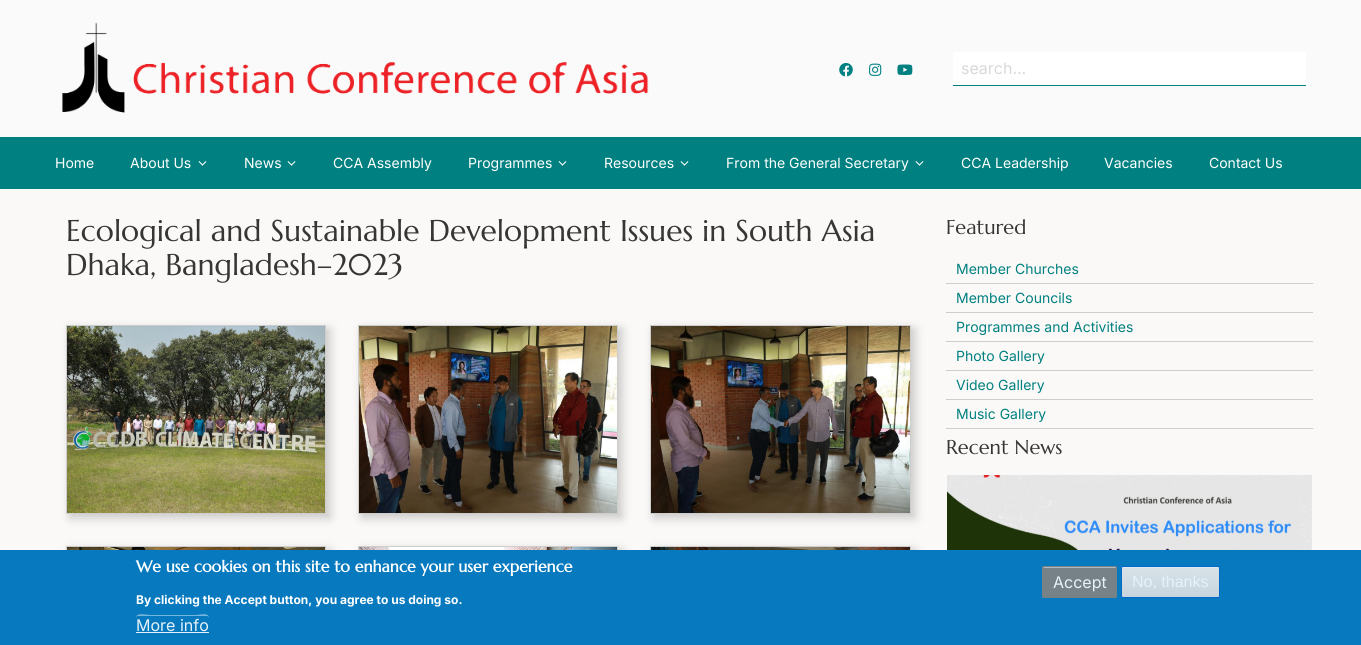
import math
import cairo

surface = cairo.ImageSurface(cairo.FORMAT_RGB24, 1361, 645)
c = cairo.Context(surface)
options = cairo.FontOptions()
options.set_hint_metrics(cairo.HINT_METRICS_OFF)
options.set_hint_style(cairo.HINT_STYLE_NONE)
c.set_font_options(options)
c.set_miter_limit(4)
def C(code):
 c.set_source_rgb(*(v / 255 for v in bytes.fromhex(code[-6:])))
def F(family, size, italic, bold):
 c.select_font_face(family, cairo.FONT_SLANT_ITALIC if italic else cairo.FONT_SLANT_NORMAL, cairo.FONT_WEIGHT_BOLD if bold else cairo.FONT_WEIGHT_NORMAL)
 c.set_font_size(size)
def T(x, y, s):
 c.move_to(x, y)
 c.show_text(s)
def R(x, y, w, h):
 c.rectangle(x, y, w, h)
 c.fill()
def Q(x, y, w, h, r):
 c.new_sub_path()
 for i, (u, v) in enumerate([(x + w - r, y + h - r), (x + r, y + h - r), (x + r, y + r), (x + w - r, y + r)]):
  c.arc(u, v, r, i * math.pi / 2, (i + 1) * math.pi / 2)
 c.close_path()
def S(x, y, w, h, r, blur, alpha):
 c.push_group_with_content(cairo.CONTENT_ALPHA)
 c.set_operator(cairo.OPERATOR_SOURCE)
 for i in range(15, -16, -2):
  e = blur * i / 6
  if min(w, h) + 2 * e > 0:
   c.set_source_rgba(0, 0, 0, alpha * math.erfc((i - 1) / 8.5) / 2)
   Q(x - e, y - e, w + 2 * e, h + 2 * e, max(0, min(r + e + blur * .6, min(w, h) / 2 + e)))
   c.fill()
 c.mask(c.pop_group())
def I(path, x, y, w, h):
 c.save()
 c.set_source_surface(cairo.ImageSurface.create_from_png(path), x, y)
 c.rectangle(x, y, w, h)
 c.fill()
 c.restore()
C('faf9f7')
c.paint()
C('fafafa')
R(0,0,1361,137)
I('1.png',62,22,587,91)
I('2.png',839,63,14,14)
I('3.png',869,63,13,13)
I('4.png',897,64,16,11)
C('ffffff')
R(953,52,353,33)
C('008080')
R(953,85,353,1)
F('Inter',16,0,0)
C('d9d9d9')
T(961,74,'search...')
C('008080')
R(0,137,1361,52)
F('Inter',14,0,0)
C('ffffff')
T(55,168,'Home')
T(130,168,'About Us')
I('5.png',198,161,9,5)
T(244,168,'News')
I('5.png',287,161,9,5)
T(333,168,'CCA Assembly')
T(468,168,'Programmes')
I('5.png',558,161,9,5)
T(604,168,'Resources')
I('5.png',680,161,9,5)
T(726,168,'From the General Secretary')
I('5.png',915,161,9,5)
T(961,168,'CCA Leadership')
T(1104,168,'Vacancies')
T(1209,168,'Contact Us')
F('Marcellus',30,0,0)
C('363636')
T(66,241,'Ecological and Sustainable Development Issues in South Asia')
T(66,275,'Dhaka, Bangladesh–2023')
C('000000')
S(70,329,260,189,0,5,.2)
c.rectangle(66.5,325.5,259,188)
C('cdcdcd')
c.set_line_width(1)
c.stroke()
I('6.png',67,326,258,187)
C('000000')
S(362,329,260,189,0,5,.2)
c.rectangle(358.5,325.5,259,188)
C('cdcdcd')
c.stroke()
I('7.png',359,326,258,187)
C('000000')
S(654,329,261,189,0,5,.2)
c.rectangle(650.5,325.5,260,188)
C('cdcdcd')
c.stroke()
I('8.png',651,326,259,187)
C('000000')
S(70,550,260,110,0,5,.2)
c.rectangle(66.5,546.5,259,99)
C('cdcdcd')
c.stroke()
I('9.png',67,547,258,3)
C('000000')
S(362,550,260,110,0,5,.2)
c.rectangle(358.5,546.5,259,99)
C('cdcdcd')
c.stroke()
I('10.png',359,547,258,3)
C('000000')
S(654,550,261,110,0,5,.2)
c.rectangle(650.5,546.5,260,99)
C('cdcdcd')
c.stroke()
I('11.png',651,547,259,3)
F('Marcellus',20,0,0)
C('363636')
T(946,234,'Featured')
C('cdcdcd')
R(946,283,367,1)
F('Inter',14,0,0)
C('008080')
T(956,274,'Member Churches')
C('cdcdcd')
R(946,312,367,1)
C('008080')
T(956,303,'Member Councils')
C('cdcdcd')
R(946,341,367,1)
C('008080')
T(956,332,'Programmes and Activities')
C('cdcdcd')
R(946,370,367,1)
C('008080')
T(956,361,'Photo Gallery')
C('cdcdcd')
R(946,399,367,1)
C('008080')
T(956,390,'Video Gallery')
C('cdcdcd')
R(946,428,367,1)
C('008080')
T(956,419,'Music Gallery')
F('Marcellus',20,0,0)
C('363636')
T(946,454,'Recent News')
I('12.png',947,475,365,75)
C('0779bf')
R(0,550,1361,95)
F('Marcellus',16,0,1)
C('ffffff')
T(136,572,'We use cookies on this site to enhance your user experience')
F('Inter',12,0,1)
T(136,604,'By clicking the Accept button, you agree to us doing so.')
F('Inter',16,0,0)
C('e6f2f9')
T(136,631,'More info')
C('77b6dc')
c.new_path()
c.move_to(138,616)
c.line_to(207,616)
c.curve_to(208,616,209,617,209,618)
c.curve_to(209,612,199,615,196,615)
c.line_to(150,615)
c.curve_to(146,615,136,612,136,618)
c.curve_to(136,617,137,616,138,616)
c.close_path()
c.fill()
C('e6f2f9')
R(136,632,73,1)
C('768188')
Q(1042,566,75,32,2)
c.fill()
C('aebac1')
c.new_path()
c.move_to(1044,568)
c.line_to(1116,568)
c.line_to(1116,569)
c.curve_to(1116,568,1116,567,1115,567)
c.line_to(1044,567)
c.line_to(1043,569)
c.curve_to(1043,568,1043,568,1044,568)
c.close_path()
c.fill()
Q(1042.5,566.5,74,31,1.5)
C('768188')
c.stroke()
C('e6f2f9')
T(1053,588,'Accept')
c.save()
Q(1121,566,99,32,2)
c.clip()
gradient = cairo.LinearGradient(1171,567,1171,597)
gradient.add_color_stop_rgba(.05,0.839,0.882,0.91,1)
gradient.add_color_stop_rgba(1,0.788,0.835,0.863,1)
c.set_source(gradient)
R(1121,567,99,30)
c.restore()
C('deeaf1')
c.new_path()
c.move_to(1123,568)
c.line_to(1218,568)
c.curve_to(1219,568,1219,568,1219,569)
c.curve_to(1219,568,1219,567,1218,567)
c.line_to(1123,567)
c.curve_to(1122,567,1122,568,1122,569)
c.curve_to(1122,568,1122,568,1123,568)
c.close_path()
c.fill()
Q(1121.5,566.5,98,31,1.5)
C('0168cb')
c.stroke()
F('Liberation Sans',16,0,0)
C('e6f2f9')
T(1132,587,'No, thanks')
surface.write_to_png('o.png')
